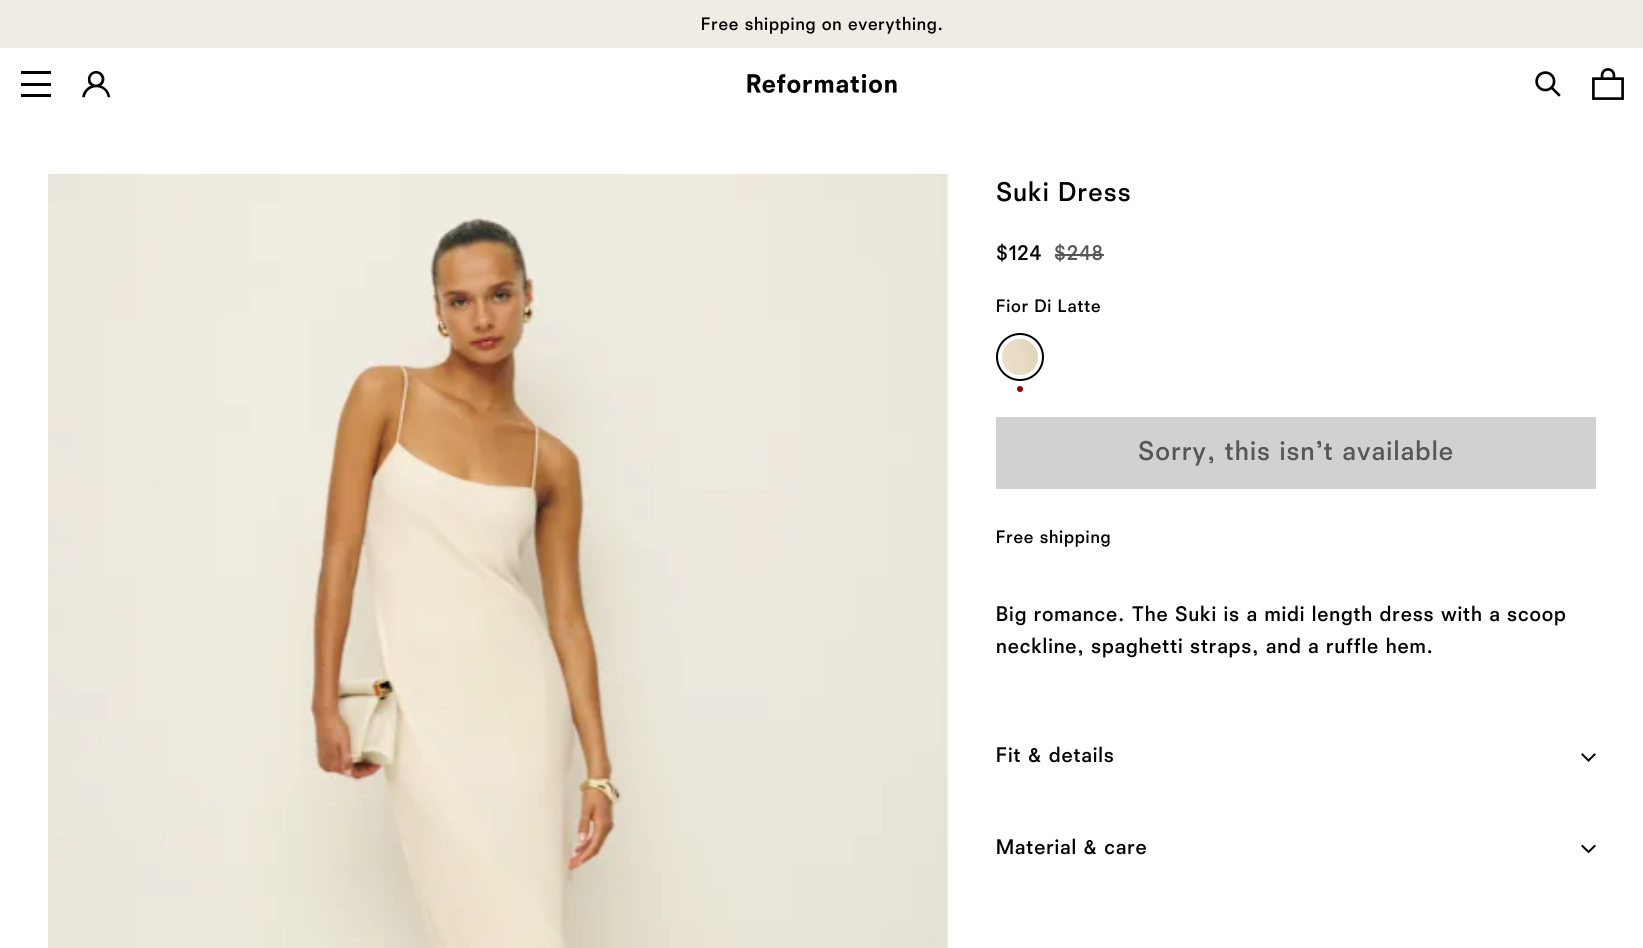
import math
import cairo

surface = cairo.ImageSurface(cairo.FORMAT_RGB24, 1643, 948)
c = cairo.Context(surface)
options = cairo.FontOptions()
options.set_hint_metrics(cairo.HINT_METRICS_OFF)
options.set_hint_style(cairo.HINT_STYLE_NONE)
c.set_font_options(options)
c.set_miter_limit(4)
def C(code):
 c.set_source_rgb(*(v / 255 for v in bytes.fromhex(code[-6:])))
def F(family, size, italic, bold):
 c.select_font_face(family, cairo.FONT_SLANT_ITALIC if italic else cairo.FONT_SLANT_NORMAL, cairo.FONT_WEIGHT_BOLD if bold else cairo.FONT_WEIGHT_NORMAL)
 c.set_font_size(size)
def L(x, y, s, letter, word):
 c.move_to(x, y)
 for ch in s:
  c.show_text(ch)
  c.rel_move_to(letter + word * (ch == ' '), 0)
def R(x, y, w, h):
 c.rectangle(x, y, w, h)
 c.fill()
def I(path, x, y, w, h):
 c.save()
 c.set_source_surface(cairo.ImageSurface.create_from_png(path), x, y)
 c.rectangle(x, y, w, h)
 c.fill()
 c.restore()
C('ffffff')
c.paint()
C('eeece4')
R(0,0,1643,48)
F('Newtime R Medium',18,0,0)
C('000000')
L(701,30,'Free shipping on everything.',.75,0)
R(21,71,30,3)
R(21,83,30,3)
R(21,94,30,3)
I('1.png',82,70,29,28)
I('2.png',747,74,150,19)
I('3.png',1535,71,26,26)
I('4.png',1592,68,32,32)
I('5.png',48,174,900,774)
F('Newtime R Medium',27,0,0)
L(996,201,'Suki Dress',1.1,0)
F('Newtime R Medium',21,0,0)
L(996,260,'$124',.85,0)
C('575757')
L(1054,260,'$248',.85,0)
R(1055,254,49,2)
F('Newtime R Medium',18,0,0)
C('000000')
L(996,312,'Fior Di Latte',.75,0)
I('6.png',1002,339,36,36)
c.arc(1020,357,23,0,2 * math.pi)
c.stroke()
C('930000')
c.arc(1020,389,3,0,2 * math.pi)
c.fill()
C('d1d1d1')
R(996,417,600,72)
F('Newtime R Medium',27,0,0)
C('575757')
L(1138,460,'Sorry, this isn’t available',1.1,0)
F('Newtime R Medium',18,0,0)
C('000000')
L(996,543,'Free shipping',.75,0)
F('Newtime R Medium',21,0,0)
L(996,621,'Big romance. The Suki is a midi length dress with a scoop',.85,0)
L(996,653,'neckline, spaghetti straps, and a ruffle hem.',.85,0)
L(996,762,'Fit & details',.85,0)
I('7.png',1581,753,15,9)
L(996,854,'Material & care',.85,0)
I('8.png',1581,844,15,10)
surface.write_to_png('o.png')
